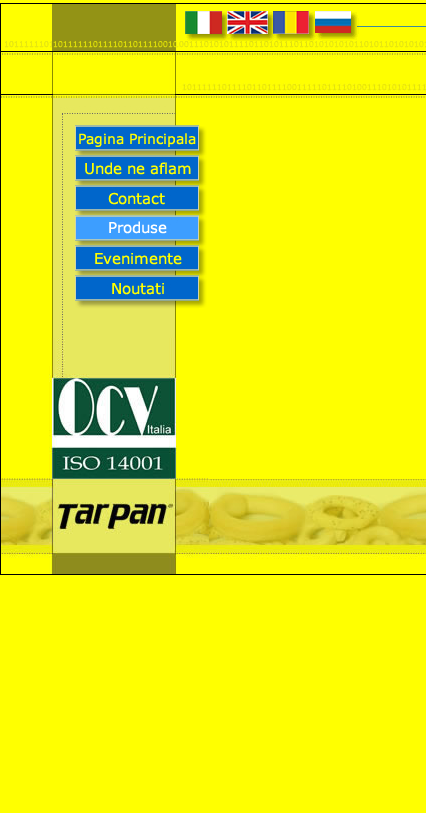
import math
import cairo

surface = cairo.ImageSurface(cairo.FORMAT_RGB24, 426, 813)
c = cairo.Context(surface)
options = cairo.FontOptions()
options.set_hint_metrics(cairo.HINT_METRICS_OFF)
options.set_hint_style(cairo.HINT_STYLE_NONE)
c.set_font_options(options)
c.set_miter_limit(4)
def C(code):
 c.set_source_rgb(*(v / 255 for v in bytes.fromhex(code[-6:])))
def R(x, y, w, h):
 c.rectangle(x, y, w, h)
 c.fill()
def I(path, x, y, w, h):
 c.save()
 c.set_source_surface(cairo.ImageSurface.create_from_png(path), x, y)
 c.rectangle(x, y, w, h)
 c.fill()
 c.restore()
C('ffff00')
c.paint()
C('000000')
R(0,3,426,1)
R(0,4,1,570)
C('939315')
R(52,4,124,7)
I('1.png',5,11,180,40)
I('2.png',185,11,41,28)
I('3.png',226,13,1,35)
I('4.png',227,11,45,28)
I('5.png',272,13,1,35)
I('6.png',273,11,41,28)
I('7.png',314,14,1,26)
I('8.png',315,11,42,28)
I('9.png',357,15,69,33)
I('10.png',185,39,41,9)
I('11.png',227,39,45,9)
I('12.png',273,39,41,9)
I('13.png',315,39,42,9)
I('14.png',1,51,425,47)
I('15.png',52,98,124,27)
I('16.png',52,125,23,213)
I('17.png',75,125,124,25)
I('18.png',199,126,8,182)
I('19.png',75,150,124,5)
I('20.png',75,155,124,25)
I('19.png',75,180,124,5)
I('21.png',75,185,124,25)
I('19.png',75,210,124,5)
I('22.png',75,215,124,25)
I('19.png',75,240,124,5)
I('23.png',75,245,124,25)
I('19.png',75,270,124,5)
I('24.png',75,275,124,26)
I('25.png',75,301,124,37)
I('26.png',209,479,217,80)
I('27.png',50,338,127,28)
I('28.png',1,366,208,208)
C('000000')
R(0,574,426,1)
surface.write_to_png('o.png')
